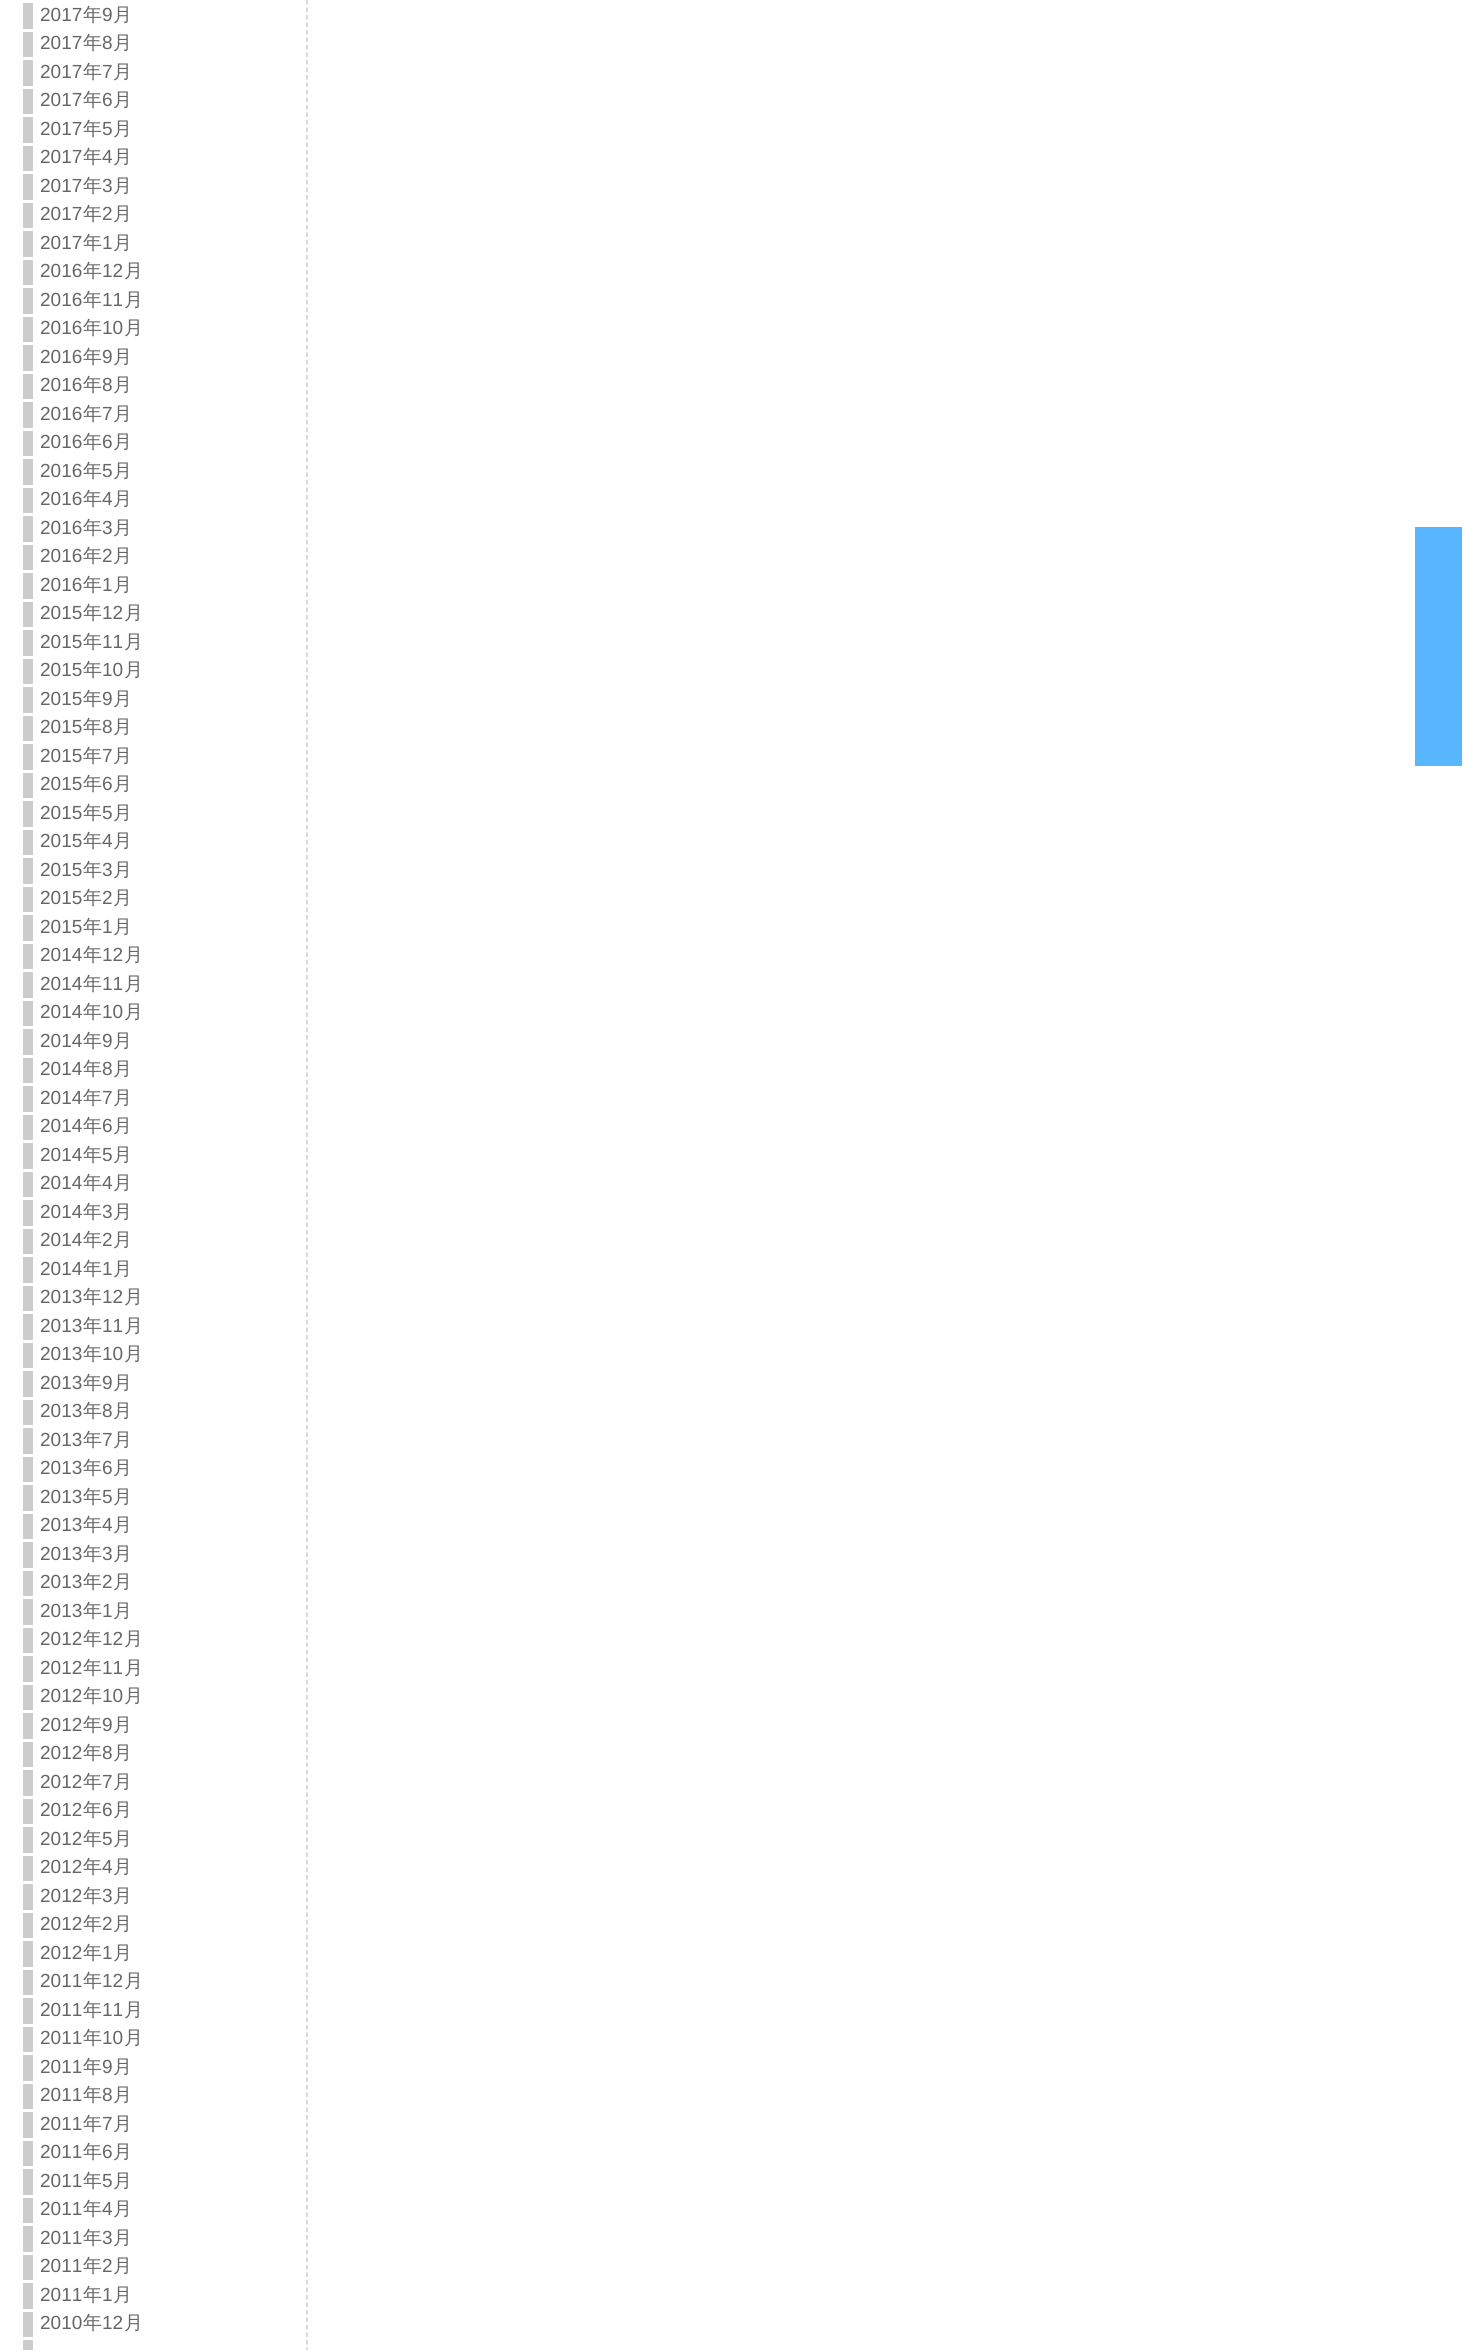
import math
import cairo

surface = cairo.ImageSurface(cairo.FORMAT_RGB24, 1464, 2350)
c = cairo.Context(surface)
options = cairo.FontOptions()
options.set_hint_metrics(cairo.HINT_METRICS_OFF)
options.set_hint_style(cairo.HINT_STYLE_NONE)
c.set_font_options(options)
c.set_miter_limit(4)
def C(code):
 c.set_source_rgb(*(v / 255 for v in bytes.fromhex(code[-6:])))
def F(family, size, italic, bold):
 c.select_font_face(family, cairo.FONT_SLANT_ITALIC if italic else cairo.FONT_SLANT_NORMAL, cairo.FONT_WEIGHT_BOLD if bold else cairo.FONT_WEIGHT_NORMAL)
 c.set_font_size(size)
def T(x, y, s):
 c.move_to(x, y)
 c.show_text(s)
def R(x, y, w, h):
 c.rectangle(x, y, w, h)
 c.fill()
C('ffffff')
c.paint()
c.new_path()
c.move_to(307,-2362.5)
c.line_to(307,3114)
C('cccccc')
c.set_line_width(1.5)
c.set_dash([4.5,3])
c.stroke()
R(23,3,10,26)
F('Liberation Sans',19,0,0)
C('666666')
T(40,21,'2017')
F('WenQuanYi Zen Hei Medium',19,0,0)
T(83,21,'年')
F('Liberation Sans',19,0,0)
T(102,21,'9')
F('WenQuanYi Zen Hei Medium',19,0,0)
T(113,21,'月')
C('cccccc')
R(23,32,10,25)
F('Liberation Sans',19,0,0)
C('666666')
T(40,49,'2017')
F('WenQuanYi Zen Hei Medium',19,0,0)
T(83,49,'年')
F('Liberation Sans',19,0,0)
T(102,49,'8')
F('WenQuanYi Zen Hei Medium',19,0,0)
T(113,49,'月')
C('cccccc')
R(23,60,10,26)
F('Liberation Sans',19,0,0)
C('666666')
T(40,78,'2017')
F('WenQuanYi Zen Hei Medium',19,0,0)
T(83,78,'年')
F('Liberation Sans',19,0,0)
T(102,78,'7')
F('WenQuanYi Zen Hei Medium',19,0,0)
T(113,78,'月')
C('cccccc')
R(23,89,10,25)
F('Liberation Sans',19,0,0)
C('666666')
T(40,106,'2017')
F('WenQuanYi Zen Hei Medium',19,0,0)
T(83,106,'年')
F('Liberation Sans',19,0,0)
T(102,106,'6')
F('WenQuanYi Zen Hei Medium',19,0,0)
T(113,106,'月')
C('cccccc')
R(23,117,10,26)
F('Liberation Sans',19,0,0)
C('666666')
T(40,135,'2017')
F('WenQuanYi Zen Hei Medium',19,0,0)
T(83,135,'年')
F('Liberation Sans',19,0,0)
T(102,135,'5')
F('WenQuanYi Zen Hei Medium',19,0,0)
T(113,135,'月')
C('cccccc')
R(23,146,10,25)
F('Liberation Sans',19,0,0)
C('666666')
T(40,163,'2017')
F('WenQuanYi Zen Hei Medium',19,0,0)
T(83,163,'年')
F('Liberation Sans',19,0,0)
T(102,163,'4')
F('WenQuanYi Zen Hei Medium',19,0,0)
T(113,163,'月')
C('cccccc')
R(23,174,10,26)
F('Liberation Sans',19,0,0)
C('666666')
T(40,192,'2017')
F('WenQuanYi Zen Hei Medium',19,0,0)
T(83,192,'年')
F('Liberation Sans',19,0,0)
T(102,192,'3')
F('WenQuanYi Zen Hei Medium',19,0,0)
T(113,192,'月')
C('cccccc')
R(23,203,10,25)
F('Liberation Sans',19,0,0)
C('666666')
T(40,220,'2017')
F('WenQuanYi Zen Hei Medium',19,0,0)
T(83,220,'年')
F('Liberation Sans',19,0,0)
T(102,220,'2')
F('WenQuanYi Zen Hei Medium',19,0,0)
T(113,220,'月')
C('cccccc')
R(23,231,10,26)
F('Liberation Sans',19,0,0)
C('666666')
T(40,249,'2017')
F('WenQuanYi Zen Hei Medium',19,0,0)
T(83,249,'年')
F('Liberation Sans',19,0,0)
T(102,249,'1')
F('WenQuanYi Zen Hei Medium',19,0,0)
T(113,249,'月')
C('cccccc')
R(23,260,10,25)
F('Liberation Sans',19,0,0)
C('666666')
T(40,277,'2016')
F('WenQuanYi Zen Hei Medium',19,0,0)
T(83,277,'年')
F('Liberation Sans',19,0,0)
T(102,277,'12')
F('WenQuanYi Zen Hei Medium',19,0,0)
T(124,277,'月')
C('cccccc')
R(23,288,10,26)
F('Liberation Sans',19,0,0)
C('666666')
T(40,306,'2016')
F('WenQuanYi Zen Hei Medium',19,0,0)
T(83,306,'年')
F('Liberation Sans',19,0,0)
T(102,306,'11')
F('WenQuanYi Zen Hei Medium',19,0,0)
T(124,306,'月')
C('cccccc')
R(23,317,10,25)
F('Liberation Sans',19,0,0)
C('666666')
T(40,334,'2016')
F('WenQuanYi Zen Hei Medium',19,0,0)
T(83,334,'年')
F('Liberation Sans',19,0,0)
T(102,334,'10')
F('WenQuanYi Zen Hei Medium',19,0,0)
T(124,334,'月')
C('cccccc')
R(23,345,10,26)
F('Liberation Sans',19,0,0)
C('666666')
T(40,363,'2016')
F('WenQuanYi Zen Hei Medium',19,0,0)
T(83,363,'年')
F('Liberation Sans',19,0,0)
T(102,363,'9')
F('WenQuanYi Zen Hei Medium',19,0,0)
T(113,363,'月')
C('cccccc')
R(23,374,10,25)
F('Liberation Sans',19,0,0)
C('666666')
T(40,391,'2016')
F('WenQuanYi Zen Hei Medium',19,0,0)
T(83,391,'年')
F('Liberation Sans',19,0,0)
T(102,391,'8')
F('WenQuanYi Zen Hei Medium',19,0,0)
T(113,391,'月')
C('cccccc')
R(23,402,10,26)
F('Liberation Sans',19,0,0)
C('666666')
T(40,420,'2016')
F('WenQuanYi Zen Hei Medium',19,0,0)
T(83,420,'年')
F('Liberation Sans',19,0,0)
T(102,420,'7')
F('WenQuanYi Zen Hei Medium',19,0,0)
T(113,420,'月')
C('cccccc')
R(23,431,10,25)
F('Liberation Sans',19,0,0)
C('666666')
T(40,448,'2016')
F('WenQuanYi Zen Hei Medium',19,0,0)
T(83,448,'年')
F('Liberation Sans',19,0,0)
T(102,448,'6')
F('WenQuanYi Zen Hei Medium',19,0,0)
T(113,448,'月')
C('cccccc')
R(23,459,10,26)
F('Liberation Sans',19,0,0)
C('666666')
T(40,477,'2016')
F('WenQuanYi Zen Hei Medium',19,0,0)
T(83,477,'年')
F('Liberation Sans',19,0,0)
T(102,477,'5')
F('WenQuanYi Zen Hei Medium',19,0,0)
T(113,477,'月')
C('cccccc')
R(23,488,10,25)
F('Liberation Sans',19,0,0)
C('666666')
T(40,505,'2016')
F('WenQuanYi Zen Hei Medium',19,0,0)
T(83,505,'年')
F('Liberation Sans',19,0,0)
T(102,505,'4')
F('WenQuanYi Zen Hei Medium',19,0,0)
T(113,505,'月')
C('cccccc')
R(23,516,10,26)
F('Liberation Sans',19,0,0)
C('666666')
T(40,534,'2016')
F('WenQuanYi Zen Hei Medium',19,0,0)
T(83,534,'年')
F('Liberation Sans',19,0,0)
T(102,534,'3')
F('WenQuanYi Zen Hei Medium',19,0,0)
T(113,534,'月')
C('cccccc')
R(23,545,10,25)
F('Liberation Sans',19,0,0)
C('666666')
T(40,562,'2016')
F('WenQuanYi Zen Hei Medium',19,0,0)
T(83,562,'年')
F('Liberation Sans',19,0,0)
T(102,562,'2')
F('WenQuanYi Zen Hei Medium',19,0,0)
T(113,562,'月')
C('cccccc')
R(23,573,10,26)
F('Liberation Sans',19,0,0)
C('666666')
T(40,591,'2016')
F('WenQuanYi Zen Hei Medium',19,0,0)
T(83,591,'年')
F('Liberation Sans',19,0,0)
T(102,591,'1')
F('WenQuanYi Zen Hei Medium',19,0,0)
T(113,591,'月')
C('cccccc')
R(23,602,10,25)
F('Liberation Sans',19,0,0)
C('666666')
T(40,619,'2015')
F('WenQuanYi Zen Hei Medium',19,0,0)
T(83,619,'年')
F('Liberation Sans',19,0,0)
T(102,619,'12')
F('WenQuanYi Zen Hei Medium',19,0,0)
T(124,619,'月')
C('cccccc')
R(23,630,10,26)
F('Liberation Sans',19,0,0)
C('666666')
T(40,648,'2015')
F('WenQuanYi Zen Hei Medium',19,0,0)
T(83,648,'年')
F('Liberation Sans',19,0,0)
T(102,648,'11')
F('WenQuanYi Zen Hei Medium',19,0,0)
T(124,648,'月')
C('cccccc')
R(23,659,10,25)
F('Liberation Sans',19,0,0)
C('666666')
T(40,676,'2015')
F('WenQuanYi Zen Hei Medium',19,0,0)
T(83,676,'年')
F('Liberation Sans',19,0,0)
T(102,676,'10')
F('WenQuanYi Zen Hei Medium',19,0,0)
T(124,676,'月')
C('cccccc')
R(23,687,10,26)
F('Liberation Sans',19,0,0)
C('666666')
T(40,705,'2015')
F('WenQuanYi Zen Hei Medium',19,0,0)
T(83,705,'年')
F('Liberation Sans',19,0,0)
T(102,705,'9')
F('WenQuanYi Zen Hei Medium',19,0,0)
T(113,705,'月')
C('cccccc')
R(23,716,10,25)
F('Liberation Sans',19,0,0)
C('666666')
T(40,733,'2015')
F('WenQuanYi Zen Hei Medium',19,0,0)
T(83,733,'年')
F('Liberation Sans',19,0,0)
T(102,733,'8')
F('WenQuanYi Zen Hei Medium',19,0,0)
T(113,733,'月')
C('cccccc')
R(23,744,10,26)
F('Liberation Sans',19,0,0)
C('666666')
T(40,762,'2015')
F('WenQuanYi Zen Hei Medium',19,0,0)
T(83,762,'年')
F('Liberation Sans',19,0,0)
T(102,762,'7')
F('WenQuanYi Zen Hei Medium',19,0,0)
T(113,762,'月')
C('cccccc')
R(23,773,10,25)
F('Liberation Sans',19,0,0)
C('666666')
T(40,790,'2015')
F('WenQuanYi Zen Hei Medium',19,0,0)
T(83,790,'年')
F('Liberation Sans',19,0,0)
T(102,790,'6')
F('WenQuanYi Zen Hei Medium',19,0,0)
T(113,790,'月')
C('cccccc')
R(23,801,10,26)
F('Liberation Sans',19,0,0)
C('666666')
T(40,819,'2015')
F('WenQuanYi Zen Hei Medium',19,0,0)
T(83,819,'年')
F('Liberation Sans',19,0,0)
T(102,819,'5')
F('WenQuanYi Zen Hei Medium',19,0,0)
T(113,819,'月')
C('cccccc')
R(23,830,10,25)
F('Liberation Sans',19,0,0)
C('666666')
T(40,847,'2015')
F('WenQuanYi Zen Hei Medium',19,0,0)
T(83,847,'年')
F('Liberation Sans',19,0,0)
T(102,847,'4')
F('WenQuanYi Zen Hei Medium',19,0,0)
T(113,847,'月')
C('cccccc')
R(23,858,10,26)
F('Liberation Sans',19,0,0)
C('666666')
T(40,876,'2015')
F('WenQuanYi Zen Hei Medium',19,0,0)
T(83,876,'年')
F('Liberation Sans',19,0,0)
T(102,876,'3')
F('WenQuanYi Zen Hei Medium',19,0,0)
T(113,876,'月')
C('cccccc')
R(23,887,10,25)
F('Liberation Sans',19,0,0)
C('666666')
T(40,904,'2015')
F('WenQuanYi Zen Hei Medium',19,0,0)
T(83,904,'年')
F('Liberation Sans',19,0,0)
T(102,904,'2')
F('WenQuanYi Zen Hei Medium',19,0,0)
T(113,904,'月')
C('cccccc')
R(23,915,10,26)
F('Liberation Sans',19,0,0)
C('666666')
T(40,933,'2015')
F('WenQuanYi Zen Hei Medium',19,0,0)
T(83,933,'年')
F('Liberation Sans',19,0,0)
T(102,933,'1')
F('WenQuanYi Zen Hei Medium',19,0,0)
T(113,933,'月')
C('cccccc')
R(23,944,10,25)
F('Liberation Sans',19,0,0)
C('666666')
T(40,961,'2014')
F('WenQuanYi Zen Hei Medium',19,0,0)
T(83,961,'年')
F('Liberation Sans',19,0,0)
T(102,961,'12')
F('WenQuanYi Zen Hei Medium',19,0,0)
T(124,961,'月')
C('cccccc')
R(23,972,10,26)
F('Liberation Sans',19,0,0)
C('666666')
T(40,990,'2014')
F('WenQuanYi Zen Hei Medium',19,0,0)
T(83,990,'年')
F('Liberation Sans',19,0,0)
T(102,990,'11')
F('WenQuanYi Zen Hei Medium',19,0,0)
T(124,990,'月')
C('cccccc')
R(23,1001,10,25)
F('Liberation Sans',19,0,0)
C('666666')
T(40,1018,'2014')
F('WenQuanYi Zen Hei Medium',19,0,0)
T(83,1018,'年')
F('Liberation Sans',19,0,0)
T(102,1018,'10')
F('WenQuanYi Zen Hei Medium',19,0,0)
T(124,1018,'月')
C('cccccc')
R(23,1029,10,26)
F('Liberation Sans',19,0,0)
C('666666')
T(40,1047,'2014')
F('WenQuanYi Zen Hei Medium',19,0,0)
T(83,1047,'年')
F('Liberation Sans',19,0,0)
T(102,1047,'9')
F('WenQuanYi Zen Hei Medium',19,0,0)
T(113,1047,'月')
C('cccccc')
R(23,1058,10,25)
F('Liberation Sans',19,0,0)
C('666666')
T(40,1075,'2014')
F('WenQuanYi Zen Hei Medium',19,0,0)
T(83,1075,'年')
F('Liberation Sans',19,0,0)
T(102,1075,'8')
F('WenQuanYi Zen Hei Medium',19,0,0)
T(113,1075,'月')
C('cccccc')
R(23,1086,10,26)
F('Liberation Sans',19,0,0)
C('666666')
T(40,1104,'2014')
F('WenQuanYi Zen Hei Medium',19,0,0)
T(83,1104,'年')
F('Liberation Sans',19,0,0)
T(102,1104,'7')
F('WenQuanYi Zen Hei Medium',19,0,0)
T(113,1104,'月')
C('cccccc')
R(23,1115,10,25)
F('Liberation Sans',19,0,0)
C('666666')
T(40,1132,'2014')
F('WenQuanYi Zen Hei Medium',19,0,0)
T(83,1132,'年')
F('Liberation Sans',19,0,0)
T(102,1132,'6')
F('WenQuanYi Zen Hei Medium',19,0,0)
T(113,1132,'月')
C('cccccc')
R(23,1143,10,26)
F('Liberation Sans',19,0,0)
C('666666')
T(40,1161,'2014')
F('WenQuanYi Zen Hei Medium',19,0,0)
T(83,1161,'年')
F('Liberation Sans',19,0,0)
T(102,1161,'5')
F('WenQuanYi Zen Hei Medium',19,0,0)
T(113,1161,'月')
C('cccccc')
R(23,1172,10,25)
F('Liberation Sans',19,0,0)
C('666666')
T(40,1189,'2014')
F('WenQuanYi Zen Hei Medium',19,0,0)
T(83,1189,'年')
F('Liberation Sans',19,0,0)
T(102,1189,'4')
F('WenQuanYi Zen Hei Medium',19,0,0)
T(113,1189,'月')
C('cccccc')
R(23,1200,10,26)
F('Liberation Sans',19,0,0)
C('666666')
T(40,1218,'2014')
F('WenQuanYi Zen Hei Medium',19,0,0)
T(83,1218,'年')
F('Liberation Sans',19,0,0)
T(102,1218,'3')
F('WenQuanYi Zen Hei Medium',19,0,0)
T(113,1218,'月')
C('cccccc')
R(23,1229,10,25)
F('Liberation Sans',19,0,0)
C('666666')
T(40,1246,'2014')
F('WenQuanYi Zen Hei Medium',19,0,0)
T(83,1246,'年')
F('Liberation Sans',19,0,0)
T(102,1246,'2')
F('WenQuanYi Zen Hei Medium',19,0,0)
T(113,1246,'月')
C('cccccc')
R(23,1257,10,26)
F('Liberation Sans',19,0,0)
C('666666')
T(40,1275,'2014')
F('WenQuanYi Zen Hei Medium',19,0,0)
T(83,1275,'年')
F('Liberation Sans',19,0,0)
T(102,1275,'1')
F('WenQuanYi Zen Hei Medium',19,0,0)
T(113,1275,'月')
C('cccccc')
R(23,1286,10,25)
F('Liberation Sans',19,0,0)
C('666666')
T(40,1303,'2013')
F('WenQuanYi Zen Hei Medium',19,0,0)
T(83,1303,'年')
F('Liberation Sans',19,0,0)
T(102,1303,'12')
F('WenQuanYi Zen Hei Medium',19,0,0)
T(124,1303,'月')
C('cccccc')
R(23,1314,10,26)
F('Liberation Sans',19,0,0)
C('666666')
T(40,1332,'2013')
F('WenQuanYi Zen Hei Medium',19,0,0)
T(83,1332,'年')
F('Liberation Sans',19,0,0)
T(102,1332,'11')
F('WenQuanYi Zen Hei Medium',19,0,0)
T(124,1332,'月')
C('cccccc')
R(23,1343,10,25)
F('Liberation Sans',19,0,0)
C('666666')
T(40,1360,'2013')
F('WenQuanYi Zen Hei Medium',19,0,0)
T(83,1360,'年')
F('Liberation Sans',19,0,0)
T(102,1360,'10')
F('WenQuanYi Zen Hei Medium',19,0,0)
T(124,1360,'月')
C('cccccc')
R(23,1371,10,26)
F('Liberation Sans',19,0,0)
C('666666')
T(40,1389,'2013')
F('WenQuanYi Zen Hei Medium',19,0,0)
T(83,1389,'年')
F('Liberation Sans',19,0,0)
T(102,1389,'9')
F('WenQuanYi Zen Hei Medium',19,0,0)
T(113,1389,'月')
C('cccccc')
R(23,1400,10,25)
F('Liberation Sans',19,0,0)
C('666666')
T(40,1417,'2013')
F('WenQuanYi Zen Hei Medium',19,0,0)
T(83,1417,'年')
F('Liberation Sans',19,0,0)
T(102,1417,'8')
F('WenQuanYi Zen Hei Medium',19,0,0)
T(113,1417,'月')
C('cccccc')
R(23,1428,10,26)
F('Liberation Sans',19,0,0)
C('666666')
T(40,1446,'2013')
F('WenQuanYi Zen Hei Medium',19,0,0)
T(83,1446,'年')
F('Liberation Sans',19,0,0)
T(102,1446,'7')
F('WenQuanYi Zen Hei Medium',19,0,0)
T(113,1446,'月')
C('cccccc')
R(23,1457,10,25)
F('Liberation Sans',19,0,0)
C('666666')
T(40,1474,'2013')
F('WenQuanYi Zen Hei Medium',19,0,0)
T(83,1474,'年')
F('Liberation Sans',19,0,0)
T(102,1474,'6')
F('WenQuanYi Zen Hei Medium',19,0,0)
T(113,1474,'月')
C('cccccc')
R(23,1485,10,26)
F('Liberation Sans',19,0,0)
C('666666')
T(40,1503,'2013')
F('WenQuanYi Zen Hei Medium',19,0,0)
T(83,1503,'年')
F('Liberation Sans',19,0,0)
T(102,1503,'5')
F('WenQuanYi Zen Hei Medium',19,0,0)
T(113,1503,'月')
C('cccccc')
R(23,1514,10,25)
F('Liberation Sans',19,0,0)
C('666666')
T(40,1531,'2013')
F('WenQuanYi Zen Hei Medium',19,0,0)
T(83,1531,'年')
F('Liberation Sans',19,0,0)
T(102,1531,'4')
F('WenQuanYi Zen Hei Medium',19,0,0)
T(113,1531,'月')
C('cccccc')
R(23,1542,10,26)
F('Liberation Sans',19,0,0)
C('666666')
T(40,1560,'2013')
F('WenQuanYi Zen Hei Medium',19,0,0)
T(83,1560,'年')
F('Liberation Sans',19,0,0)
T(102,1560,'3')
F('WenQuanYi Zen Hei Medium',19,0,0)
T(113,1560,'月')
C('cccccc')
R(23,1571,10,25)
F('Liberation Sans',19,0,0)
C('666666')
T(40,1588,'2013')
F('WenQuanYi Zen Hei Medium',19,0,0)
T(83,1588,'年')
F('Liberation Sans',19,0,0)
T(102,1588,'2')
F('WenQuanYi Zen Hei Medium',19,0,0)
T(113,1588,'月')
C('cccccc')
R(23,1599,10,26)
F('Liberation Sans',19,0,0)
C('666666')
T(40,1617,'2013')
F('WenQuanYi Zen Hei Medium',19,0,0)
T(83,1617,'年')
F('Liberation Sans',19,0,0)
T(102,1617,'1')
F('WenQuanYi Zen Hei Medium',19,0,0)
T(113,1617,'月')
C('cccccc')
R(23,1628,10,25)
F('Liberation Sans',19,0,0)
C('666666')
T(40,1645,'2012')
F('WenQuanYi Zen Hei Medium',19,0,0)
T(83,1645,'年')
F('Liberation Sans',19,0,0)
T(102,1645,'12')
F('WenQuanYi Zen Hei Medium',19,0,0)
T(124,1645,'月')
C('cccccc')
R(23,1656,10,26)
F('Liberation Sans',19,0,0)
C('666666')
T(40,1674,'2012')
F('WenQuanYi Zen Hei Medium',19,0,0)
T(83,1674,'年')
F('Liberation Sans',19,0,0)
T(102,1674,'11')
F('WenQuanYi Zen Hei Medium',19,0,0)
T(124,1674,'月')
C('cccccc')
R(23,1685,10,25)
F('Liberation Sans',19,0,0)
C('666666')
T(40,1702,'2012')
F('WenQuanYi Zen Hei Medium',19,0,0)
T(83,1702,'年')
F('Liberation Sans',19,0,0)
T(102,1702,'10')
F('WenQuanYi Zen Hei Medium',19,0,0)
T(124,1702,'月')
C('cccccc')
R(23,1713,10,26)
F('Liberation Sans',19,0,0)
C('666666')
T(40,1731,'2012')
F('WenQuanYi Zen Hei Medium',19,0,0)
T(83,1731,'年')
F('Liberation Sans',19,0,0)
T(102,1731,'9')
F('WenQuanYi Zen Hei Medium',19,0,0)
T(113,1731,'月')
C('cccccc')
R(23,1742,10,25)
F('Liberation Sans',19,0,0)
C('666666')
T(40,1759,'2012')
F('WenQuanYi Zen Hei Medium',19,0,0)
T(83,1759,'年')
F('Liberation Sans',19,0,0)
T(102,1759,'8')
F('WenQuanYi Zen Hei Medium',19,0,0)
T(113,1759,'月')
C('cccccc')
R(23,1770,10,26)
F('Liberation Sans',19,0,0)
C('666666')
T(40,1788,'2012')
F('WenQuanYi Zen Hei Medium',19,0,0)
T(83,1788,'年')
F('Liberation Sans',19,0,0)
T(102,1788,'7')
F('WenQuanYi Zen Hei Medium',19,0,0)
T(113,1788,'月')
C('cccccc')
R(23,1799,10,25)
F('Liberation Sans',19,0,0)
C('666666')
T(40,1816,'2012')
F('WenQuanYi Zen Hei Medium',19,0,0)
T(83,1816,'年')
F('Liberation Sans',19,0,0)
T(102,1816,'6')
F('WenQuanYi Zen Hei Medium',19,0,0)
T(113,1816,'月')
C('cccccc')
R(23,1827,10,26)
F('Liberation Sans',19,0,0)
C('666666')
T(40,1845,'2012')
F('WenQuanYi Zen Hei Medium',19,0,0)
T(83,1845,'年')
F('Liberation Sans',19,0,0)
T(102,1845,'5')
F('WenQuanYi Zen Hei Medium',19,0,0)
T(113,1845,'月')
C('cccccc')
R(23,1856,10,25)
F('Liberation Sans',19,0,0)
C('666666')
T(40,1873,'2012')
F('WenQuanYi Zen Hei Medium',19,0,0)
T(83,1873,'年')
F('Liberation Sans',19,0,0)
T(102,1873,'4')
F('WenQuanYi Zen Hei Medium',19,0,0)
T(113,1873,'月')
C('cccccc')
R(23,1884,10,26)
F('Liberation Sans',19,0,0)
C('666666')
T(40,1902,'2012')
F('WenQuanYi Zen Hei Medium',19,0,0)
T(83,1902,'年')
F('Liberation Sans',19,0,0)
T(102,1902,'3')
F('WenQuanYi Zen Hei Medium',19,0,0)
T(113,1902,'月')
C('cccccc')
R(23,1913,10,25)
F('Liberation Sans',19,0,0)
C('666666')
T(40,1930,'2012')
F('WenQuanYi Zen Hei Medium',19,0,0)
T(83,1930,'年')
F('Liberation Sans',19,0,0)
T(102,1930,'2')
F('WenQuanYi Zen Hei Medium',19,0,0)
T(113,1930,'月')
C('cccccc')
R(23,1941,10,26)
F('Liberation Sans',19,0,0)
C('666666')
T(40,1959,'2012')
F('WenQuanYi Zen Hei Medium',19,0,0)
T(83,1959,'年')
F('Liberation Sans',19,0,0)
T(102,1959,'1')
F('WenQuanYi Zen Hei Medium',19,0,0)
T(113,1959,'月')
C('cccccc')
R(23,1970,10,25)
F('Liberation Sans',19,0,0)
C('666666')
T(40,1987,'2011')
F('WenQuanYi Zen Hei Medium',19,0,0)
T(83,1987,'年')
F('Liberation Sans',19,0,0)
T(102,1987,'12')
F('WenQuanYi Zen Hei Medium',19,0,0)
T(124,1987,'月')
C('cccccc')
R(23,1998,10,26)
F('Liberation Sans',19,0,0)
C('666666')
T(40,2016,'2011')
F('WenQuanYi Zen Hei Medium',19,0,0)
T(83,2016,'年')
F('Liberation Sans',19,0,0)
T(102,2016,'11')
F('WenQuanYi Zen Hei Medium',19,0,0)
T(124,2016,'月')
C('cccccc')
R(23,2027,10,25)
F('Liberation Sans',19,0,0)
C('666666')
T(40,2044,'2011')
F('WenQuanYi Zen Hei Medium',19,0,0)
T(83,2044,'年')
F('Liberation Sans',19,0,0)
T(102,2044,'10')
F('WenQuanYi Zen Hei Medium',19,0,0)
T(124,2044,'月')
C('cccccc')
R(23,2055,10,26)
F('Liberation Sans',19,0,0)
C('666666')
T(40,2073,'2011')
F('WenQuanYi Zen Hei Medium',19,0,0)
T(83,2073,'年')
F('Liberation Sans',19,0,0)
T(102,2073,'9')
F('WenQuanYi Zen Hei Medium',19,0,0)
T(113,2073,'月')
C('cccccc')
R(23,2084,10,25)
F('Liberation Sans',19,0,0)
C('666666')
T(40,2101,'2011')
F('WenQuanYi Zen Hei Medium',19,0,0)
T(83,2101,'年')
F('Liberation Sans',19,0,0)
T(102,2101,'8')
F('WenQuanYi Zen Hei Medium',19,0,0)
T(113,2101,'月')
C('cccccc')
R(23,2112,10,26)
F('Liberation Sans',19,0,0)
C('666666')
T(40,2130,'2011')
F('WenQuanYi Zen Hei Medium',19,0,0)
T(83,2130,'年')
F('Liberation Sans',19,0,0)
T(102,2130,'7')
F('WenQuanYi Zen Hei Medium',19,0,0)
T(113,2130,'月')
C('cccccc')
R(23,2141,10,25)
F('Liberation Sans',19,0,0)
C('666666')
T(40,2158,'2011')
F('WenQuanYi Zen Hei Medium',19,0,0)
T(83,2158,'年')
F('Liberation Sans',19,0,0)
T(102,2158,'6')
F('WenQuanYi Zen Hei Medium',19,0,0)
T(113,2158,'月')
C('cccccc')
R(23,2169,10,26)
F('Liberation Sans',19,0,0)
C('666666')
T(40,2187,'2011')
F('WenQuanYi Zen Hei Medium',19,0,0)
T(83,2187,'年')
F('Liberation Sans',19,0,0)
T(102,2187,'5')
F('WenQuanYi Zen Hei Medium',19,0,0)
T(113,2187,'月')
C('cccccc')
R(23,2198,10,25)
F('Liberation Sans',19,0,0)
C('666666')
T(40,2215,'2011')
F('WenQuanYi Zen Hei Medium',19,0,0)
T(83,2215,'年')
F('Liberation Sans',19,0,0)
T(102,2215,'4')
F('WenQuanYi Zen Hei Medium',19,0,0)
T(113,2215,'月')
C('cccccc')
R(23,2226,10,26)
F('Liberation Sans',19,0,0)
C('666666')
T(40,2244,'2011')
F('WenQuanYi Zen Hei Medium',19,0,0)
T(83,2244,'年')
F('Liberation Sans',19,0,0)
T(102,2244,'3')
F('WenQuanYi Zen Hei Medium',19,0,0)
T(113,2244,'月')
C('cccccc')
R(23,2255,10,25)
F('Liberation Sans',19,0,0)
C('666666')
T(40,2272,'2011')
F('WenQuanYi Zen Hei Medium',19,0,0)
T(83,2272,'年')
F('Liberation Sans',19,0,0)
T(102,2272,'2')
F('WenQuanYi Zen Hei Medium',19,0,0)
T(113,2272,'月')
C('cccccc')
R(23,2283,10,26)
F('Liberation Sans',19,0,0)
C('666666')
T(40,2301,'2011')
F('WenQuanYi Zen Hei Medium',19,0,0)
T(83,2301,'年')
F('Liberation Sans',19,0,0)
T(102,2301,'1')
F('WenQuanYi Zen Hei Medium',19,0,0)
T(113,2301,'月')
C('cccccc')
R(23,2312,10,25)
F('Liberation Sans',19,0,0)
C('666666')
T(40,2329,'2010')
F('WenQuanYi Zen Hei Medium',19,0,0)
T(83,2329,'年')
F('Liberation Sans',19,0,0)
T(102,2329,'12')
F('WenQuanYi Zen Hei Medium',19,0,0)
T(124,2329,'月')
C('cccccc')
R(23,2340,10,10)
C('59b7ff')
R(1415,527,47,239)
surface.write_to_png('o.png')
